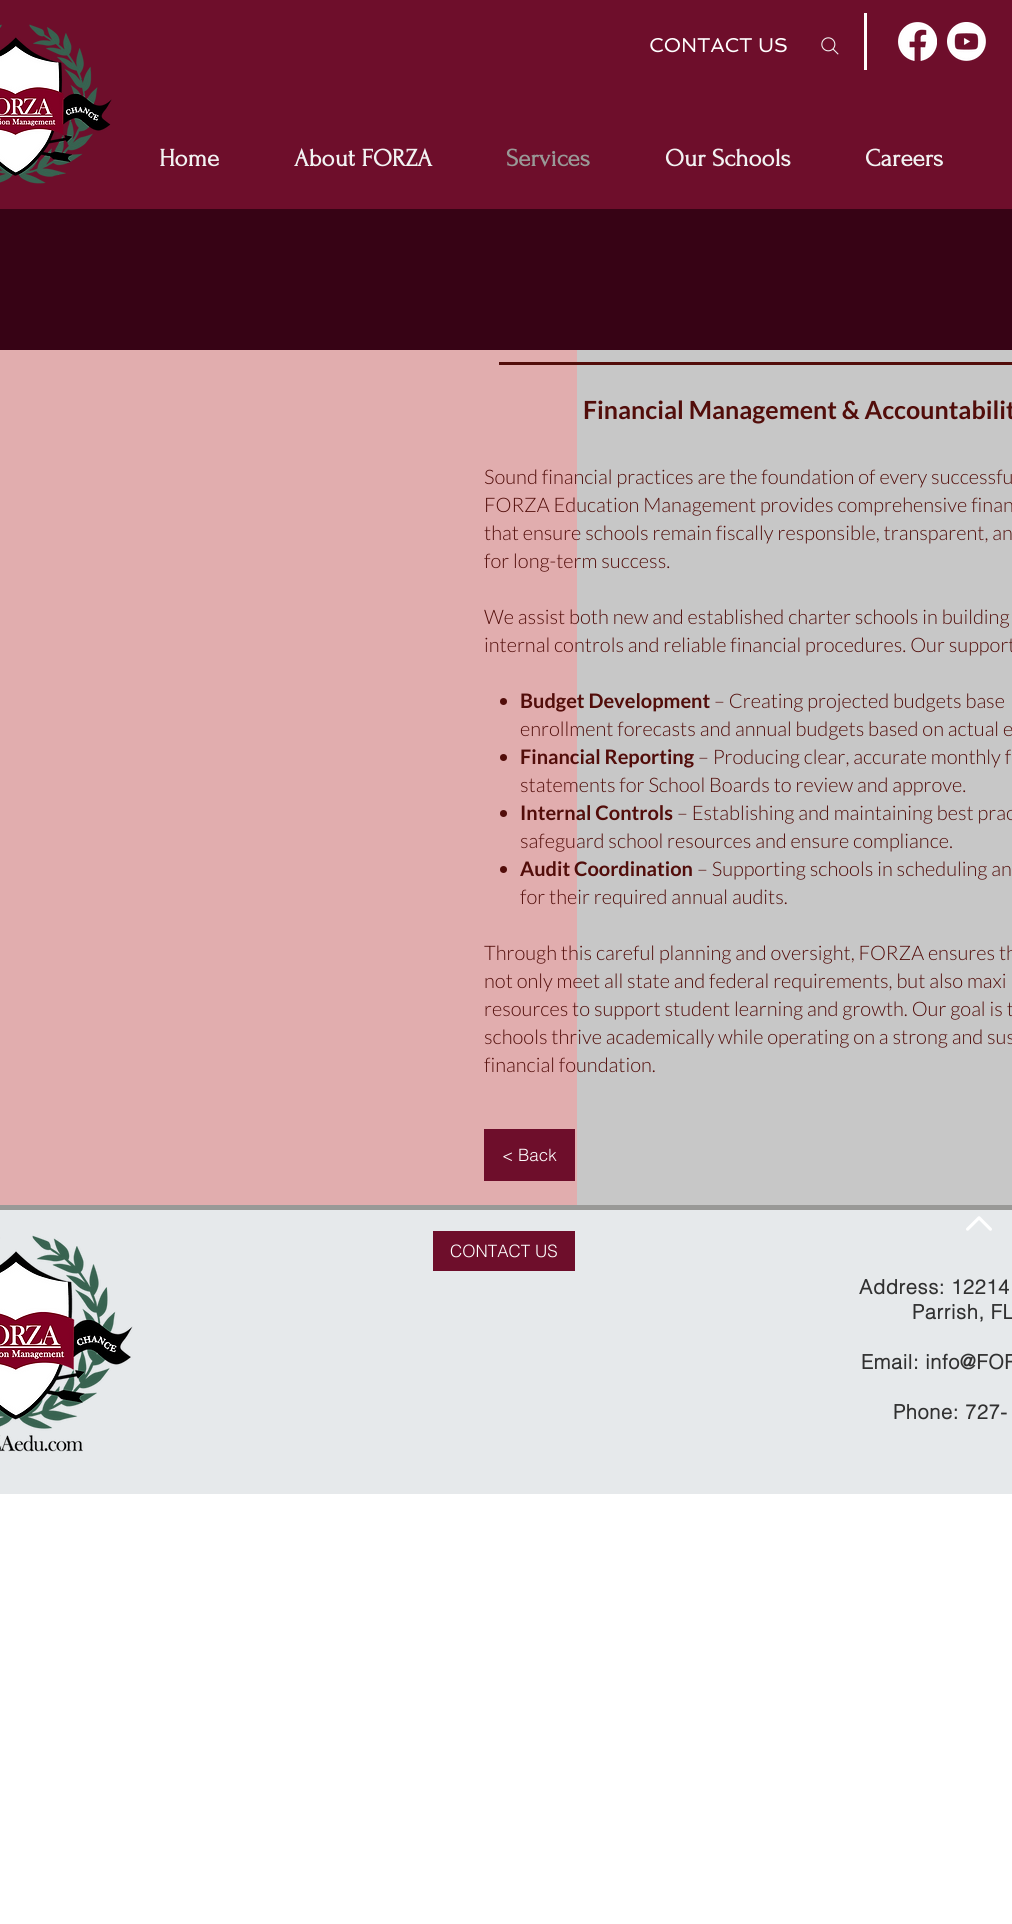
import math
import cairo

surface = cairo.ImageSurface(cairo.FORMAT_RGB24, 1012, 1924)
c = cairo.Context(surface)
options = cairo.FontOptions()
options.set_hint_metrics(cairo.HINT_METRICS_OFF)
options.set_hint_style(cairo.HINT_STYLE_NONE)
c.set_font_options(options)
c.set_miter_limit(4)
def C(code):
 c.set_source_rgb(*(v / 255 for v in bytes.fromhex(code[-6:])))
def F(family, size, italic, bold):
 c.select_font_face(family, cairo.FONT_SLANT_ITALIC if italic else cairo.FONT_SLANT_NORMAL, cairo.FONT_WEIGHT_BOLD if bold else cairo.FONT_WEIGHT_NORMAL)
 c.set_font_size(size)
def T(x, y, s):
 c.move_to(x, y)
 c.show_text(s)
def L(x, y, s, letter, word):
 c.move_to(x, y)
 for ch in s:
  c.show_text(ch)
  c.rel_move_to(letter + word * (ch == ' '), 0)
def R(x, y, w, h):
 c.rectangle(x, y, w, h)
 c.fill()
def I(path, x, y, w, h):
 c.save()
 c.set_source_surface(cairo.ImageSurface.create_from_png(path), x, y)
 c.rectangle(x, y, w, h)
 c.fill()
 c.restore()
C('ffffff')
c.paint()
C('6e0e2b')
R(0,0,1012,209)
I('1.png',0,24,112,160)
F('Spinnaker',20,0,0)
C('ffffff')
T(649,52,'CONTACT US')
I('2.png',821,37,18,18)
R(864,13,3,57)
I('3.png',898,22,39,39)
I('4.png',947,22,39,39)
F('Forum',25,0,1)
C('f2f2f2')
T(159,166,'Home')
T(294,166,'About FORZA')
C('999997')
T(506,166,'Services')
C('f2f2f2')
T(665,166,'Our Schools')
T(865,166,'Careers')
C('370315')
R(0,209,1012,141)
C('e1adae')
R(0,350,577,855)
C('c7c7c7')
R(577,350,435,855)
C('520d0a')
R(499,362,513,3)
F('Lato',25,0,1)
T(583,419,'Financial Management & Accountabilit')
F('Lato Light',20,0,0)
T(484,484,'Sound financial practices are the foundation of every successfu')
T(484,512,'FORZA Education Management provides comprehensive finan')
T(484,540,'that ensure schools remain fiscally responsible, transparent, an')
T(484,568,'for long-term success.')
T(484,624,'We assist both new and established charter schools in building')
T(484,652,'internal controls and reliable financial procedures. Our support')
c.new_path()
c.arc(503.5,701.5,3.5,0,2 * math.pi)
c.fill()
F('Lato',20,0,1)
T(520,708,'Budget Development')
F('Lato Light',20,0,0)
T(714,708,'– Creating projected budgets base')
T(520,736,'enrollment forecasts and annual budgets based on actual e')
c.new_path()
c.arc(503.5,757.5,3.5,0,2 * math.pi)
c.fill()
F('Lato',20,0,1)
T(520,764,'Financial Reporting')
F('Lato Light',20,0,0)
T(698,764,'– Producing clear, accurate monthly f')
T(520,792,'statements for School Boards to review and approve.')
c.new_path()
c.arc(503.5,813.5,3.5,0,2 * math.pi)
c.fill()
F('Lato',20,0,1)
T(520,820,'Internal Controls')
F('Lato Light',20,0,0)
T(677,820,'– Establishing and maintaining best prac')
T(520,848,'safeguard school resources and ensure compliance.')
c.new_path()
c.arc(503.5,869.5,3.5,0,2 * math.pi)
c.fill()
F('Lato',20,0,1)
T(520,876,'Audit Coordination')
F('Lato Light',20,0,0)
T(697,876,'– Supporting schools in scheduling an')
T(520,904,'for their required annual audits.')
T(484,960,'Through this careful planning and oversight, FORZA ensures th')
T(484,988,'not only meet all state and federal requirements, but also maxi')
T(484,1016,'resources to support student learning and growth. Our goal is t')
T(484,1044,'schools thrive academically while operating on a strong and sus')
T(484,1072,'financial foundation.')
C('6e0e2b')
R(484,1129,91,52)
F('helvetica Light',17,0,0)
C('ffffff')
T(502,1161,'< Back')
C('e6e9eb')
R(0,1210,1012,284)
C('999997')
R(0,1205,1012,5)
I('5.png',966,1216,26,15)
I('6.png',0,1235,133,217)
C('6e0e2b')
R(433,1231,142,40)
C('ffffff')
T(450,1257,'CONTACT US')
F('helvetica',20,0,1)
C('303030')
L(859,1294,'Address: 12214',.6,0)
L(912,1319,'Parrish, FL',.6,0)
L(861,1369,'Email: info@FOR',.6,0)
L(893,1419,'Phone: 727-',.6,0)
surface.write_to_png('o.png')
